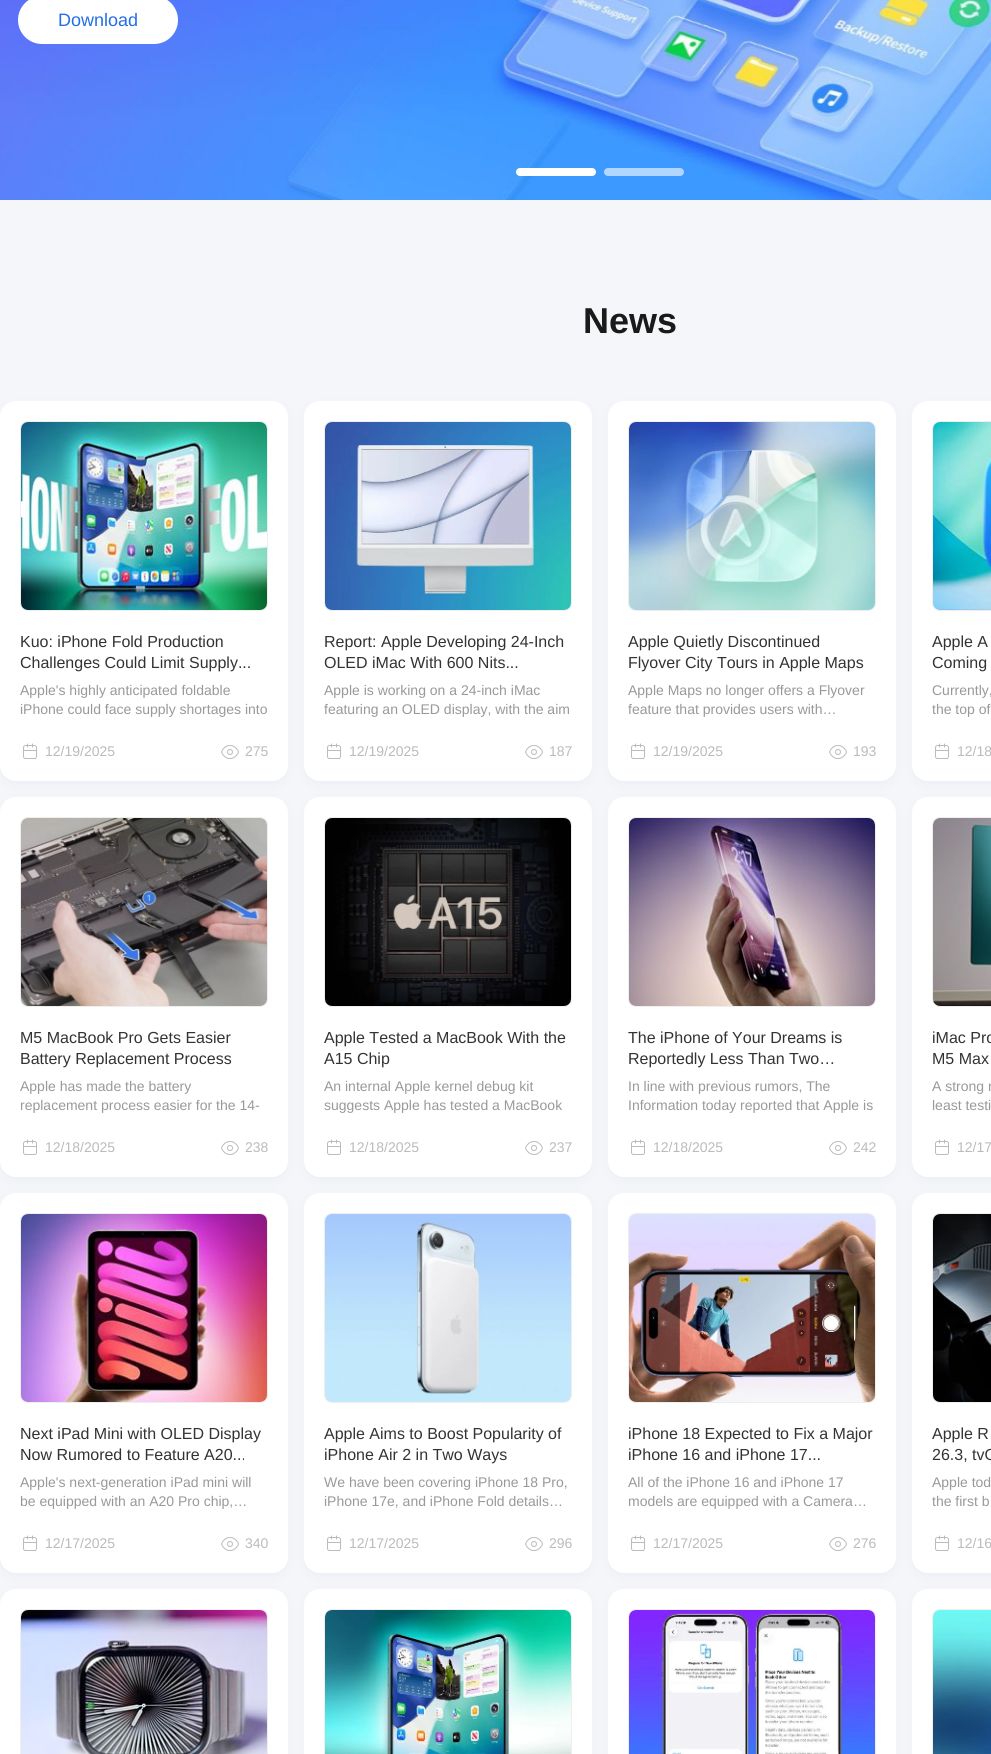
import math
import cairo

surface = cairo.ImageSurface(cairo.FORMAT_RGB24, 991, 1754)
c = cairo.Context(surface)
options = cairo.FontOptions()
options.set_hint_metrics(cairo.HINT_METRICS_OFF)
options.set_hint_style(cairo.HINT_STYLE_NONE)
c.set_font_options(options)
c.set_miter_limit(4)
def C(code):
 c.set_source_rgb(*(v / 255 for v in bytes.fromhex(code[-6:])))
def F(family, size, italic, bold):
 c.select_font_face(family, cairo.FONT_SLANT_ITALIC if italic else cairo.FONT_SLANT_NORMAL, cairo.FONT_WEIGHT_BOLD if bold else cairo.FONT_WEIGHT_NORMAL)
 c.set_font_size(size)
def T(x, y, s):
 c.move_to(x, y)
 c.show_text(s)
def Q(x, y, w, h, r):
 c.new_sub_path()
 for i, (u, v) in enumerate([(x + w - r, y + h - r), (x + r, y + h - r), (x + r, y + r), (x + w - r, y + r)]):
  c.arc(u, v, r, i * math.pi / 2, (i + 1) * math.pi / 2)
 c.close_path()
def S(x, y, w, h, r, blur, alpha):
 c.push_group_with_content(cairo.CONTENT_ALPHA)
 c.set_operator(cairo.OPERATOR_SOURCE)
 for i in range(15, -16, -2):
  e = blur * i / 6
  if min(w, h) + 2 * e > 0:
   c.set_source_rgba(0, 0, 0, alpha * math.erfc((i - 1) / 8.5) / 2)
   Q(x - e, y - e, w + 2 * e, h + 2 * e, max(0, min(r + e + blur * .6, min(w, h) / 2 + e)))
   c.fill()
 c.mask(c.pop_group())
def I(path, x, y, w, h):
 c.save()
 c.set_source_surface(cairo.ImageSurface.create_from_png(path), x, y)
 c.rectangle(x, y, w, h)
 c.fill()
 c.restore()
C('f5f6f9')
c.paint()
I('1.png',0,0,991,200)
C('ffffff')
Q(18,-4,160,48,24)
c.fill()
F('Liberation Sans',18,0,0)
C('236ee7')
T(58,26,'Download')
C('ffffff')
Q(516,168,80,8,4)
c.fill()
C('b1d6ff')
Q(604,168,80,8,4)
c.fill()
F('Liberation Sans',36,0,1)
C('1a1a1a')
T(583,333,'News')
C('c2d0e2')
S(0,405,288,380,16,5,.2)
C('ffffff')
Q(0,401,288,380,16)
c.fill()
Q(20.5,421.5,247,189,7.5)
C('eeeeee')
c.set_line_width(1)
c.stroke()
I('2.png',21,422,246,188)
F('Liberation Sans',16,0,0)
C('333333')
T(20,647,'Kuo: iPhone Fold Production')
T(20,668,'Challenges Could Limit Supply...')
F('Liberation Sans',14,0,0)
C('999999')
T(20,695,'Apple\'s highly anticipated foldable')
T(20,714,'iPhone could face supply shortages into')
I('3.png',23,743,14,16)
C('bbbbbb')
T(45,756,'12/19/2025')
I('4.png',221,745,18,14)
T(245,756,'275')
C('c2d0e2')
S(304,405,288,380,16,5,.2)
C('ffffff')
Q(304,401,288,380,16)
c.fill()
Q(324.5,421.5,247,189,7.5)
C('eeeeee')
c.stroke()
I('5.png',325,422,246,188)
F('Liberation Sans',16,0,0)
C('333333')
T(324,647,'Report: Apple Developing 24-Inch')
T(324,668,'OLED iMac With 600 Nits...')
F('Liberation Sans',14,0,0)
C('999999')
T(324,695,'Apple is working on a 24-inch iMac')
T(324,714,'featuring an OLED display, with the aim')
I('3.png',327,743,14,16)
C('bbbbbb')
T(349,756,'12/19/2025')
I('4.png',525,745,18,14)
T(549,756,'187')
C('c2d0e2')
S(608,405,288,380,16,5,.2)
C('ffffff')
Q(608,401,288,380,16)
c.fill()
Q(628.5,421.5,247,189,7.5)
C('eeeeee')
c.stroke()
I('6.png',629,422,246,188)
F('Liberation Sans',16,0,0)
C('333333')
T(628,647,'Apple Quietly Discontinued')
T(628,668,'Flyover City Tours in Apple Maps')
F('Liberation Sans',14,0,0)
C('999999')
T(628,695,'Apple Maps no longer offers a Flyover')
T(628,714,'feature that provides users with…')
I('3.png',631,743,14,16)
C('bbbbbb')
T(653,756,'12/19/2025')
I('4.png',829,745,18,14)
T(853,756,'193')
C('c2d0e2')
S(912,405,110,380,16,5,.2)
C('ffffff')
Q(912,401,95,380,16)
c.fill()
Q(932.5,421.5,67,189,7.5)
C('eeeeee')
c.stroke()
I('7.png',933,422,58,188)
F('Liberation Sans',16,0,0)
C('333333')
T(932,647,'Apple A')
T(932,668,'Coming')
F('Liberation Sans',14,0,0)
C('999999')
T(932,695,'Currently,')
T(932,714,'the top of')
I('3.png',935,743,14,16)
C('bbbbbb')
T(957,756,'12/18')
C('c2d0e2')
S(0,801,288,380,16,5,.2)
C('ffffff')
Q(0,797,288,380,16)
c.fill()
Q(20.5,817.5,247,189,7.5)
C('eeeeee')
c.stroke()
I('8.png',21,818,246,188)
F('Liberation Sans',16,0,0)
C('333333')
T(20,1043,'M5 MacBook Pro Gets Easier')
T(20,1064,'Battery Replacement Process')
F('Liberation Sans',14,0,0)
C('999999')
T(20,1091,'Apple has made the battery')
T(20,1110,'replacement process easier for the 14-')
I('3.png',23,1139,14,16)
C('bbbbbb')
T(45,1152,'12/18/2025')
I('4.png',221,1141,18,14)
T(245,1152,'238')
C('c2d0e2')
S(304,801,288,380,16,5,.2)
C('ffffff')
Q(304,797,288,380,16)
c.fill()
Q(324.5,817.5,247,189,7.5)
C('eeeeee')
c.stroke()
I('9.png',325,818,246,188)
F('Liberation Sans',16,0,0)
C('333333')
T(324,1043,'Apple Tested a MacBook With the')
T(324,1064,'A15 Chip')
F('Liberation Sans',14,0,0)
C('999999')
T(324,1091,'An internal Apple kernel debug kit')
T(324,1110,'suggests Apple has tested a MacBook')
I('3.png',327,1139,14,16)
C('bbbbbb')
T(349,1152,'12/18/2025')
I('4.png',525,1141,18,14)
T(549,1152,'237')
C('c2d0e2')
S(608,801,288,380,16,5,.2)
C('ffffff')
Q(608,797,288,380,16)
c.fill()
Q(628.5,817.5,247,189,7.5)
C('eeeeee')
c.stroke()
I('10.png',629,818,246,188)
F('Liberation Sans',16,0,0)
C('333333')
T(628,1043,'The iPhone of Your Dreams is')
T(628,1064,'Reportedly Less Than Two…')
F('Liberation Sans',14,0,0)
C('999999')
T(628,1091,'In line with previous rumors, The')
T(628,1110,'Information today reported that Apple is')
I('3.png',631,1139,14,16)
C('bbbbbb')
T(653,1152,'12/18/2025')
I('4.png',829,1141,18,14)
T(853,1152,'242')
C('c2d0e2')
S(912,801,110,380,16,5,.2)
C('ffffff')
Q(912,797,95,380,16)
c.fill()
Q(932.5,817.5,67,189,7.5)
C('eeeeee')
c.stroke()
I('11.png',933,818,58,188)
F('Liberation Sans',16,0,0)
C('333333')
T(932,1043,'iMac Pro')
T(932,1064,'M5 Max')
F('Liberation Sans',14,0,0)
C('999999')
T(932,1091,'A strong r')
T(932,1110,'least testi')
I('3.png',935,1139,14,16)
C('bbbbbb')
T(957,1152,'12/17')
C('c2d0e2')
S(0,1197,288,380,16,5,.2)
C('ffffff')
Q(0,1193,288,380,16)
c.fill()
Q(20.5,1213.5,247,189,7.5)
C('eeeeee')
c.stroke()
I('12.png',21,1214,246,188)
F('Liberation Sans',16,0,0)
C('333333')
T(20,1439,'Next iPad Mini with OLED Display')
T(20,1460,'Now Rumored to Feature A20...')
F('Liberation Sans',14,0,0)
C('999999')
T(20,1487,'Apple\'s next-generation iPad mini will')
T(20,1506,'be equipped with an A20 Pro chip,…')
I('3.png',23,1535,14,16)
C('bbbbbb')
T(45,1548,'12/17/2025')
I('4.png',221,1537,18,14)
T(245,1548,'340')
C('c2d0e2')
S(304,1197,288,380,16,5,.2)
C('ffffff')
Q(304,1193,288,380,16)
c.fill()
Q(324.5,1213.5,247,189,7.5)
C('eeeeee')
c.stroke()
I('13.png',325,1214,246,188)
F('Liberation Sans',16,0,0)
C('333333')
T(324,1439,'Apple Aims to Boost Popularity of')
T(324,1460,'iPhone Air 2 in Two Ways')
F('Liberation Sans',14,0,0)
C('999999')
T(324,1487,'We have been covering iPhone 18 Pro,')
T(324,1506,'iPhone 17e, and iPhone Fold details…')
I('3.png',327,1535,14,16)
C('bbbbbb')
T(349,1548,'12/17/2025')
I('4.png',525,1537,18,14)
T(549,1548,'296')
C('c2d0e2')
S(608,1197,288,380,16,5,.2)
C('ffffff')
Q(608,1193,288,380,16)
c.fill()
Q(628.5,1213.5,247,189,7.5)
C('eeeeee')
c.stroke()
I('14.png',629,1214,246,188)
F('Liberation Sans',16,0,0)
C('333333')
T(628,1439,'iPhone 18 Expected to Fix a Major')
T(628,1460,'iPhone 16 and iPhone 17...')
F('Liberation Sans',14,0,0)
C('999999')
T(628,1487,'All of the iPhone 16 and iPhone 17')
T(628,1506,'models are equipped with a Camera…')
I('3.png',631,1535,14,16)
C('bbbbbb')
T(653,1548,'12/17/2025')
I('4.png',829,1537,18,14)
T(853,1548,'276')
C('c2d0e2')
S(912,1197,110,380,16,5,.2)
C('ffffff')
Q(912,1193,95,380,16)
c.fill()
Q(932.5,1213.5,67,189,7.5)
C('eeeeee')
c.stroke()
I('15.png',933,1214,58,188)
F('Liberation Sans',16,0,0)
C('333333')
T(932,1439,'Apple R')
T(932,1460,'26.3, tvO')
F('Liberation Sans',14,0,0)
C('999999')
T(932,1487,'Apple tod')
T(932,1506,'the first b')
I('3.png',935,1535,14,16)
C('bbbbbb')
T(957,1548,'12/16')
C('c2d0e2')
S(0,1593,288,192,16,5,.2)
C('ffffff')
Q(0,1589,288,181,16)
c.fill()
Q(20.5,1609.5,247,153,7.5)
C('eeeeee')
c.stroke()
I('16.png',21,1610,246,144)
C('c2d0e2')
S(304,1593,288,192,16,5,.2)
C('ffffff')
Q(304,1589,288,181,16)
c.fill()
Q(324.5,1609.5,247,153,7.5)
C('eeeeee')
c.stroke()
I('17.png',325,1610,246,144)
C('c2d0e2')
S(608,1593,288,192,16,5,.2)
C('ffffff')
Q(608,1589,288,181,16)
c.fill()
Q(628.5,1609.5,247,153,7.5)
C('eeeeee')
c.stroke()
I('18.png',629,1610,246,144)
C('c2d0e2')
S(912,1593,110,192,16,5,.2)
C('ffffff')
Q(912,1589,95,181,16)
c.fill()
Q(932.5,1609.5,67,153,7.5)
C('eeeeee')
c.stroke()
I('19.png',933,1610,58,144)
surface.write_to_png('o.png')
